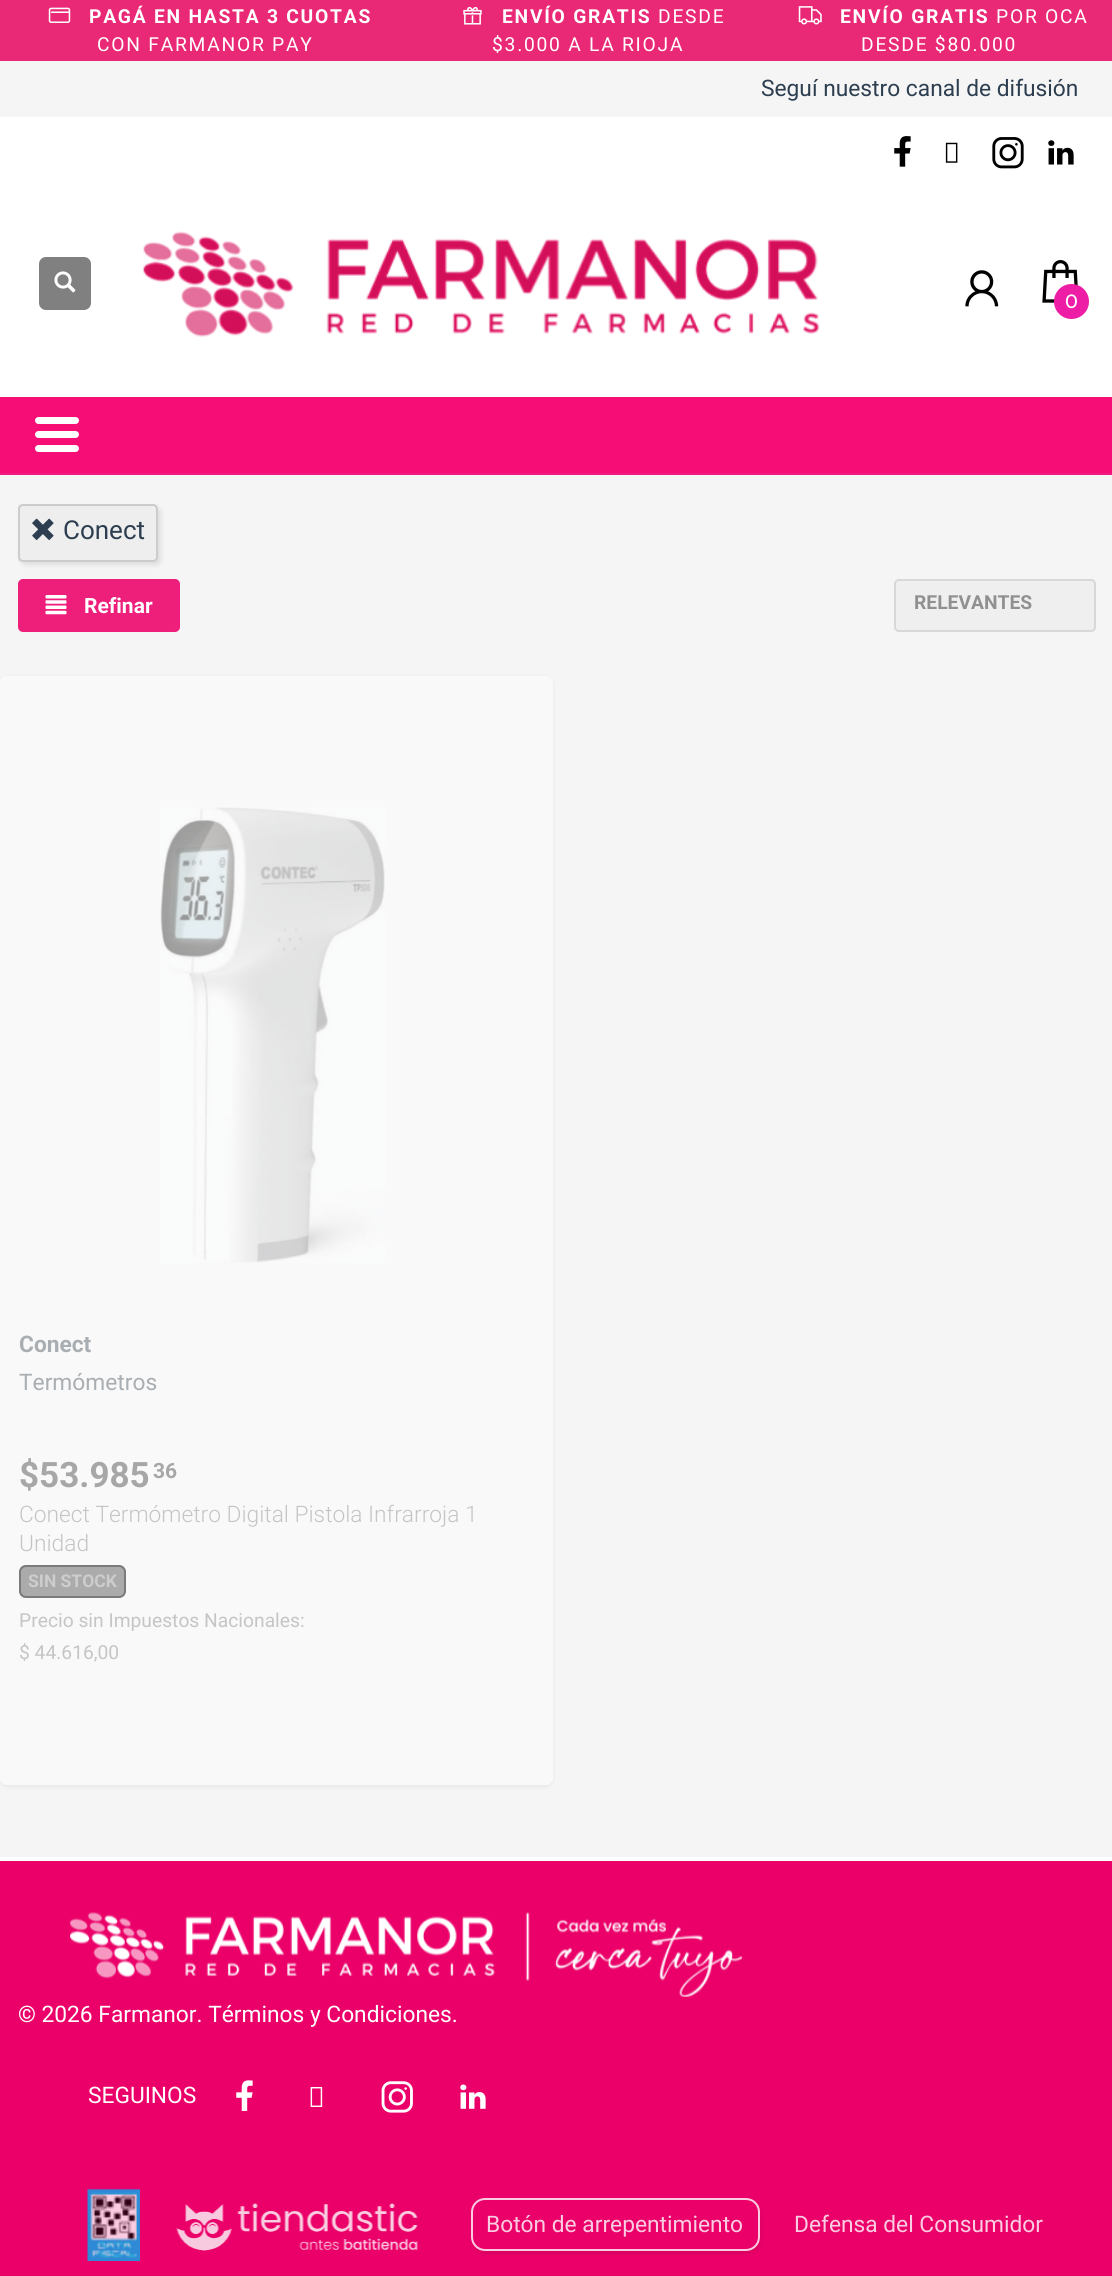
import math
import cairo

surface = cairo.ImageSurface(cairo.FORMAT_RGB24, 1112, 2276)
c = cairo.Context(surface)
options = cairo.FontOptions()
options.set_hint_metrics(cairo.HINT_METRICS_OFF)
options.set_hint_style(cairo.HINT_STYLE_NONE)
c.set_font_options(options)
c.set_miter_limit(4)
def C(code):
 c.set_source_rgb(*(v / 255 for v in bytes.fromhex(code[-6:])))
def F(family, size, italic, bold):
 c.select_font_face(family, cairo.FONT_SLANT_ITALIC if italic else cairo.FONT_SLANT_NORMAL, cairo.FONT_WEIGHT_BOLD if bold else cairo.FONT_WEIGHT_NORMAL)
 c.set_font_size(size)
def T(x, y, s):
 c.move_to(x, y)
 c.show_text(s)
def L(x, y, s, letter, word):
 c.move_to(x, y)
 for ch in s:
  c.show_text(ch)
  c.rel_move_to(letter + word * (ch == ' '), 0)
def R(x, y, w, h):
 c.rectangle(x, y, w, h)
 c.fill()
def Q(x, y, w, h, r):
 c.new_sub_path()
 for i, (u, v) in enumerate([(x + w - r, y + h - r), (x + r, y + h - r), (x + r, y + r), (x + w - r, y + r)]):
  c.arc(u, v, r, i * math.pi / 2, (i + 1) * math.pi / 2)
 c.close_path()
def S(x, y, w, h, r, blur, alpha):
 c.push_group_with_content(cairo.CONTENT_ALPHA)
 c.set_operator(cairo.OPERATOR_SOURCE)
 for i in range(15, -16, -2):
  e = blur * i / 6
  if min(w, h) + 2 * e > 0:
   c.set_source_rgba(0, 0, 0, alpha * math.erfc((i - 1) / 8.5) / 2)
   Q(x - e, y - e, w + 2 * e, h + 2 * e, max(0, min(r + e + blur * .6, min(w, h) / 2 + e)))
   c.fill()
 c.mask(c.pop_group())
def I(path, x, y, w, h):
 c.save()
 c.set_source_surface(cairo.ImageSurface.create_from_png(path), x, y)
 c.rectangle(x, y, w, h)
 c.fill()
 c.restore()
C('f5f5f5')
c.paint()
C('ea2976')
R(0,0,1112,61)
I('1.png',48,7,23,16)
F('Roboto',19.25,0,1)
C('ffffff')
L(89,23,'PAGÁ EN HASTA 3 CUOTAS',1.75,0)
F('Roboto',19.25,0,0)
L(97,51,'CON FARMANOR PAY',1.75,0)
I('2.png',463,6,19,19)
F('Roboto',19.25,0,1)
L(502,23,'ENVÍO GRATIS',1.75,0)
F('Roboto',19.25,0,0)
L(658,23,'DESDE',1.75,0)
L(492,51,'$3.000 A LA RIOJA',1.75,0)
I('3.png',798,6,24,19)
F('Roboto',19.25,0,1)
L(840,23,'ENVÍO GRATIS',1.75,0)
F('Roboto',19.25,0,0)
L(996,23,'POR OCA',1.75,0)
L(861,51,'DESDE $80.000',1.75,0)
F('Roboto',22.75,0,0)
C('2c3e50')
T(761,96,'Seguí nuestro canal de difusión')
C('ffffff')
R(0,117,1112,280)
I('4.png',894,136,17,31)
I('5.png',945,142,13,21)
I('6.png',992,137,32,32)
I('7.png',1048,140,26,25)
C('808080')
Q(39,257,52,53,7)
c.fill()
I('8.png',54,271,22,22)
I('9.png',143,231,677,106)
I('10.png',965,270,34,37)
I('11.png',1042,260,36,43)
C('ee1da6')
c.arc(1071.5,301.5,17.5,0,2 * math.pi)
c.fill()
F('Montserrat Medium',19.25,0,0)
C('ffffff')
T(1065,308,'0')
C('f60e76')
R(0,397,1112,76)
C('ee1b85')
R(0,473,1112,2)
C('ffffff')
Q(35,445,44,7,3.5)
c.fill()
Q(35,431,44,7,3.5)
c.fill()
Q(35,417,44,7,3.5)
c.fill()
c.save()
c.set_fill_rule(cairo.FILL_RULE_EVEN_ODD)
c.new_path()
c.move_to(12,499)
c.line_to(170,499)
c.line_to(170,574)
c.line_to(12,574)
c.close_path()
c.move_to(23,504)
c.line_to(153,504)
c.curve_to(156,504,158,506,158,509)
c.line_to(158,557)
c.curve_to(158,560,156,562,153,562)
c.line_to(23,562)
c.curve_to(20,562,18,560,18,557)
c.line_to(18,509)
c.curve_to(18,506,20,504,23,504)
c.close_path()
c.clip()
C('000000')
S(21,508,140,57,5,2.5,.1)
c.restore()
c.set_source_rgba(0,0,0,0.03)
R(18,504,140,58)
Q(19,505,138,56,4)
C('cccccc')
c.stroke()
I('12.png',32,518,22,22)
F('Roboto',26,0,0)
C('2c3e50')
T(63,539,'Conect')
C('ee1e7b')
Q(19,580,160,51,4)
c.fill_preserve()
c.stroke()
I('13.png',45,595,22,20)
F('Roboto',21,0,1)
C('ffffff')
T(84,613,'Refinar')
C('efefef')
Q(894,579,202,53,5)
c.fill()
Q(895,580,200,51,4)
c.set_source_rgba(0,0,0,0.1)
c.stroke()
F('Roboto',19.25,0,1)
C('909090')
T(914,609,'RELEVANTES')
c.save()
c.set_fill_rule(cairo.FILL_RULE_EVEN_ODD)
c.new_path()
c.move_to(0,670)
c.line_to(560,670)
c.line_to(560,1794)
c.line_to(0,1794)
c.close_path()
c.move_to(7,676)
c.line_to(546,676)
c.curve_to(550,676,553,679,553,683)
c.line_to(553,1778)
c.curve_to(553,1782,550,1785,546,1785)
c.line_to(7,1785)
c.curve_to(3,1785,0,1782,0,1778)
c.line_to(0,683)
c.curve_to(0,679,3,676,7,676)
c.close_path()
c.clip()
C('000000')
S(0,677,553,1110,7,2,.06)
c.restore()
c.set_source_rgba(1,1,1,0.4)
Q(0,676,553,1109,7)
c.fill()
I('14.png',160,807,225,456)
F('Roboto',22.75,0,1)
C('a9aeb2')
T(19,1352,'Conect')
F('Roboto',22.75,0,0)
T(19,1390,'Termómetros')
F('Roboto',35,0,1)
C('a7a7a7')
T(19,1487,'$53.985')
F('Roboto',21,0,1)
T(153,1478,'36')
F('Roboto Light',22.75,0,0)
C('c5c5c5')
T(19,1522,'Conect Termómetro Digital Pistola Infrarroja 1')
T(19,1551,'Unidad')
C('ababab')
Q(19,1565,107,33,7)
c.fill()
Q(20,1566,105,31,6)
c.set_source_rgba(0.2,0.2,0.2,0.4)
c.stroke()
F('Roboto',17.5,0,1)
C('cdcdcd')
T(28,1587,'SIN STOCK')
F('Roboto',19.25,0,0)
C('c5c5c5')
T(19,1627,'Precio sin Impuestos Nacionales:')
T(19,1659,'$ 44.616,00')
C('eb0069')
R(0,1861,1112,415)
C('ffffff')
R(0,1857,1112,4)
I('15.png',70,1912,672,85)
F('Roboto',22.75,0,0)
T(18,2022,'© 2026 Farmanor. Términos y Condiciones.')
T(88,2103,'SEGUINOS')
I('16.png',236,2080,17,31)
I('17.png',310,2087,13,20)
I('18.png',381,2081,32,32)
I('19.png',460,2084,26,25)
I('20.png',87,2188,53,73)
I('21.png',176,2203,242,48)
c.save()
c.set_fill_rule(cairo.FILL_RULE_EVEN_ODD)
c.new_path()
c.move_to(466,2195)
c.line_to(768,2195)
c.line_to(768,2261)
c.line_to(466,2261)
c.close_path()
c.move_to(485,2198)
c.line_to(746,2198)
c.curve_to(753.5,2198,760,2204.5,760,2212)
c.line_to(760,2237)
c.curve_to(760,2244.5,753.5,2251,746,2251)
c.line_to(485,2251)
c.curve_to(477.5,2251,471,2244.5,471,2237)
c.line_to(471,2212)
c.curve_to(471,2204.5,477.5,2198,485,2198)
c.close_path()
c.clip()
C('2f0015')
S(473,2202,288,52,14,2,.1)
c.restore()
Q(472,2199,287,51,13)
C('fbcce1')
c.stroke()
T(486,2232,'Botón de arrepentimiento')
T(794,2232,'Defensa del Consumidor')
surface.write_to_png('o.png')
